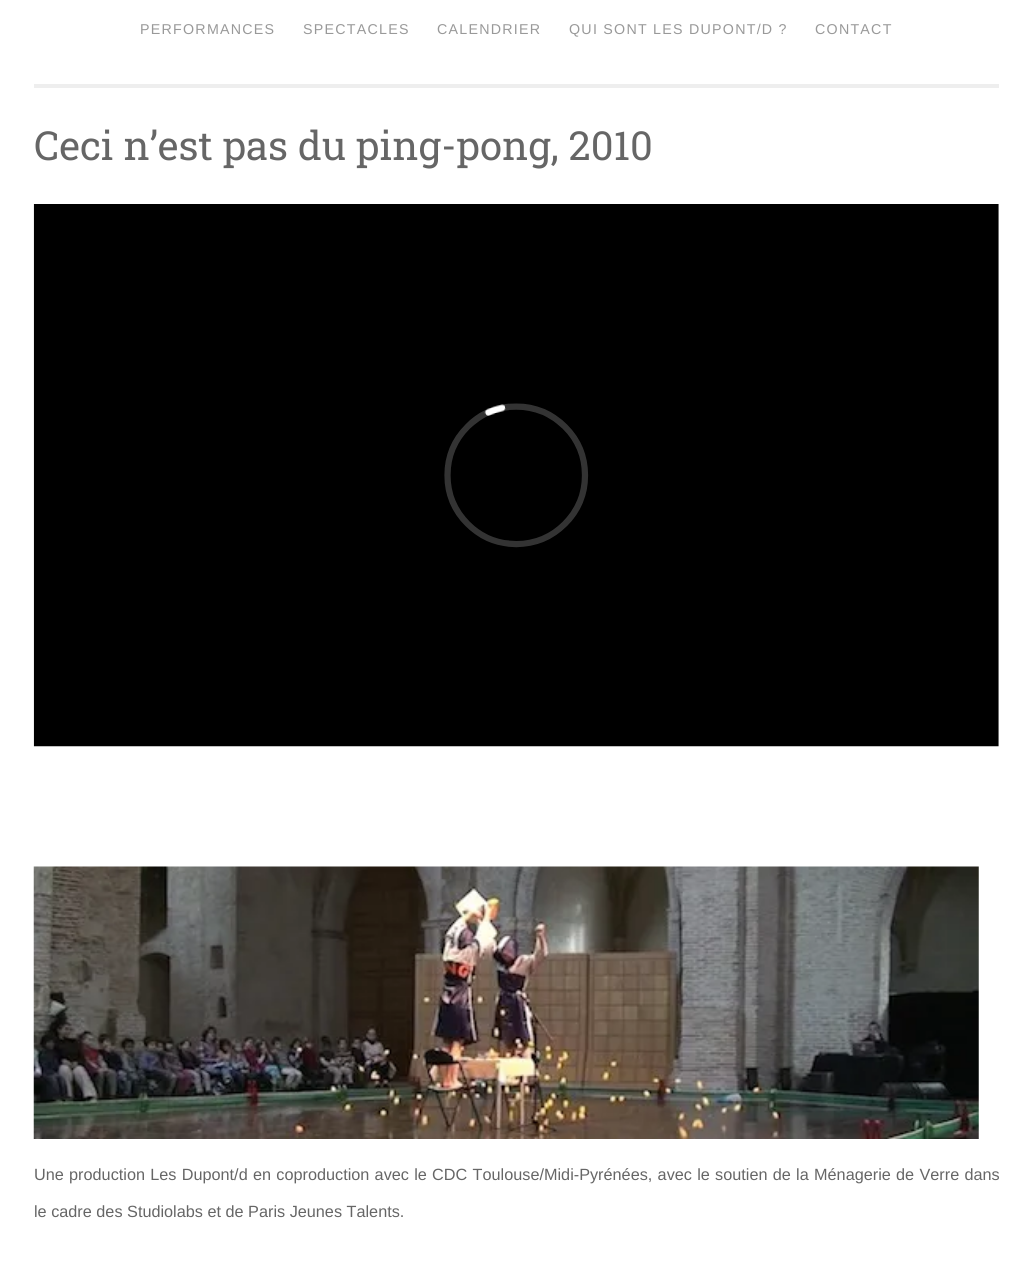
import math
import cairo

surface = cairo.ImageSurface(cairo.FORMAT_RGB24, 1032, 1267)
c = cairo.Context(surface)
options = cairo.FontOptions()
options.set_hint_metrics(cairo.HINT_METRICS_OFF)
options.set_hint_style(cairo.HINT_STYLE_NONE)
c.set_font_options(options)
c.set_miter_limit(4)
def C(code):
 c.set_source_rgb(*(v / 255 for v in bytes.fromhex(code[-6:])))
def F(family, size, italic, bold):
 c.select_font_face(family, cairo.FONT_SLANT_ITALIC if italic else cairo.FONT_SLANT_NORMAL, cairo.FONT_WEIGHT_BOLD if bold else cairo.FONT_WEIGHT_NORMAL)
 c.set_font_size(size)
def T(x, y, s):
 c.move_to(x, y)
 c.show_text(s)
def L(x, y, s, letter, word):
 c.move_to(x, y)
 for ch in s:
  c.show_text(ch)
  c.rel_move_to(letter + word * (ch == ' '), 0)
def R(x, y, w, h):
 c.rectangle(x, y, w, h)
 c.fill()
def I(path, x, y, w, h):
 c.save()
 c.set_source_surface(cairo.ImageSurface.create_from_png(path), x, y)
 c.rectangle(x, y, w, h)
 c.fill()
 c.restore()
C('ffffff')
c.paint()
C('eeeeee')
R(34,84,965,4)
F('Liberation Sans',14.25,0,0)
C('999999')
L(140,34,'PERFORMANCES',1.25,0)
L(303,34,'SPECTACLES',1.25,0)
L(437,34,'CALENDRIER',1.25,0)
L(569,34,'QUI SONT LES DUPONT/D ?',1.25,0)
L(815,34,'CONTACT',1.25,0)
F('Roboto Slab',40,0,0)
C('666666')
T(34,160,'Ceci n’est pas du ping-pong, 2010')
I('1.png',33,204,966,543)
I('2.png',33,866,946,273)
F('Liberation Sans',16.25,0,0)
L(34,1180,'Une production Les Dupont/d en coproduction avec le CDC Toulouse/Midi-Pyrénées, avec le soutien de la Ménagerie de Verre dans',0,.75)
T(34,1217,'le cadre des Studiolabs et de Paris Jeunes Talents.')
surface.write_to_png('o.png')
